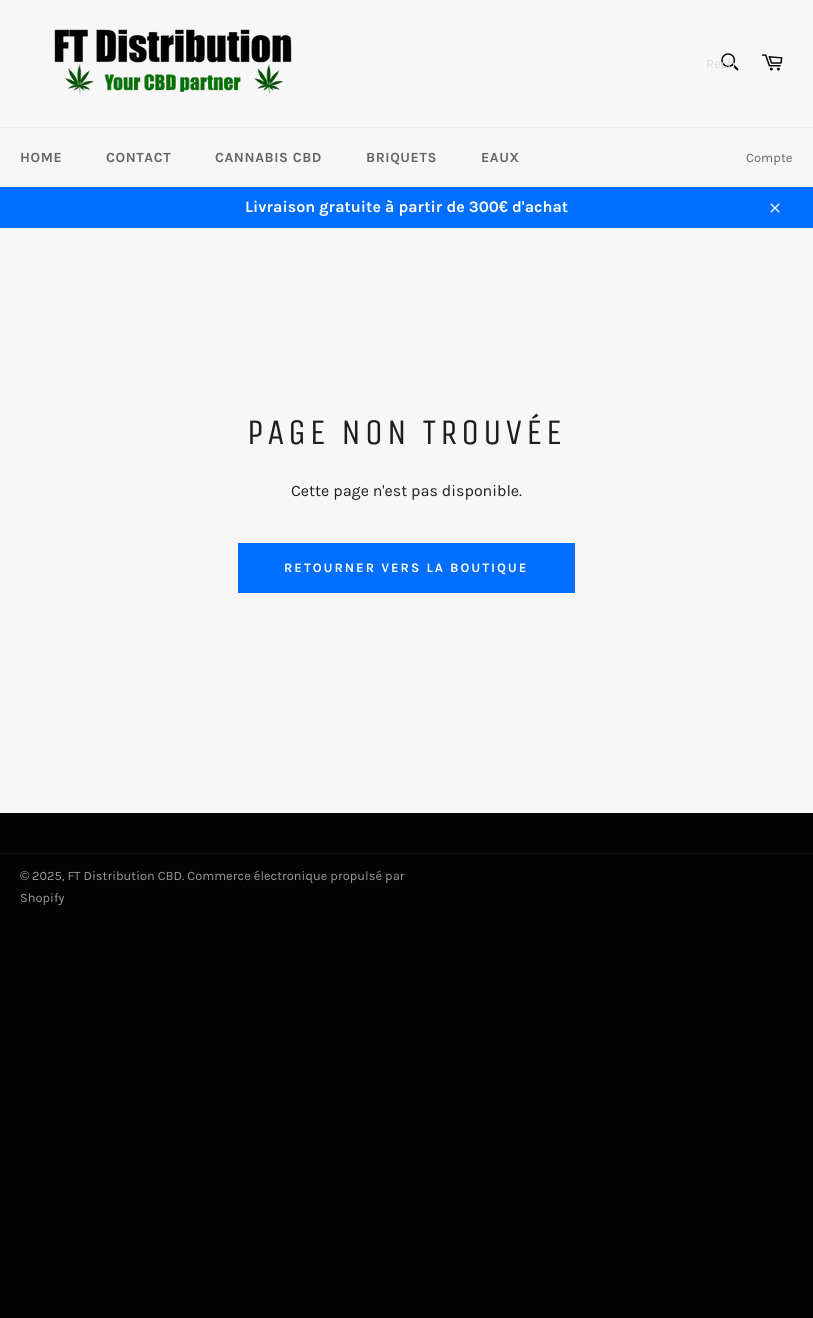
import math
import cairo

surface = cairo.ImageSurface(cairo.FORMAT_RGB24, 813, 1318)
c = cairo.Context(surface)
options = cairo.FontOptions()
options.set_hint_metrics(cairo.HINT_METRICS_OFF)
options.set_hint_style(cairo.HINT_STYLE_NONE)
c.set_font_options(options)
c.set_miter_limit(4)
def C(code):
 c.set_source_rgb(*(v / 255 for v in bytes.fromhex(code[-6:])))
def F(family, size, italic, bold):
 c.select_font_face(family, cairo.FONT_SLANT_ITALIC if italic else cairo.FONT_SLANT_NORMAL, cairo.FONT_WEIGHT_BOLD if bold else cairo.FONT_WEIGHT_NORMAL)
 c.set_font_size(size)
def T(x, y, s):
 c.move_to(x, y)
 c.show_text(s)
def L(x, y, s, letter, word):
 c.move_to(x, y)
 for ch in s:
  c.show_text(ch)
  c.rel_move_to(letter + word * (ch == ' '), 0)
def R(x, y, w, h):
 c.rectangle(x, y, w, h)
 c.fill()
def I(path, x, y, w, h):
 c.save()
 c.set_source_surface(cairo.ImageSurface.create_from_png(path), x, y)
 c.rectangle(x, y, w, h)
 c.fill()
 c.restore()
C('030303')
c.paint()
C('f7f7f7')
R(0,0,813,813)
I('1.png',54,29,238,65)
I('2.png',721,53,18,18)
F('Karla',13,0,0)
C('dbdbdb')
T(706,68,'Rech')
I('3.png',761,54,22,17)
C('eaeaea')
R(0,127,813,1)
F('Karla',14,0,1)
C('656565')
L(20,162,'HOME',.6,0)
L(106,162,'CONTACT',.6,0)
L(215,162,'CANNABIS CBD',.6,0)
L(366,162,'BRIQUETS',.6,0)
L(481,162,'EAUX',.6,0)
F('Karla',13,0,0)
T(746,162,'Compte')
C('006eff')
R(0,187,813,41)
F('Karla',16,0,1)
C('ffffff')
T(245,212,'Livraison gratuite à partir de 300')
F('Liberation Sans',16,0,1)
T(499,212,'€')
F('Karla',16,0,1)
T(512,212,'d\'achat')
I('4.png',770,203,10,10)
F('Unica One',36,0,0)
C('211d1d')
L(247,444,'PAGE NON TROUVÉE',3.6,0)
F('Karla',16,0,0)
T(291,496,'Cette page n\'est pas disponible.')
C('006eff')
R(238,543,337,50)
F('Karla',13,0,1)
C('ffffff')
L(284,572,'RETOURNER VERS LA BOUTIQUE',1.95,0)
C('101010')
R(0,853,813,1)
F('Liberation Sans',12.8,0,0)
C('9a9a9a')
T(20,880,'©')
F('Karla',12.8,0,0)
T(32,880,'2025, FT Distribution CBD. Commerce électronique propulsé par')
T(20,902,'Shopify')
surface.write_to_png('o.png')
